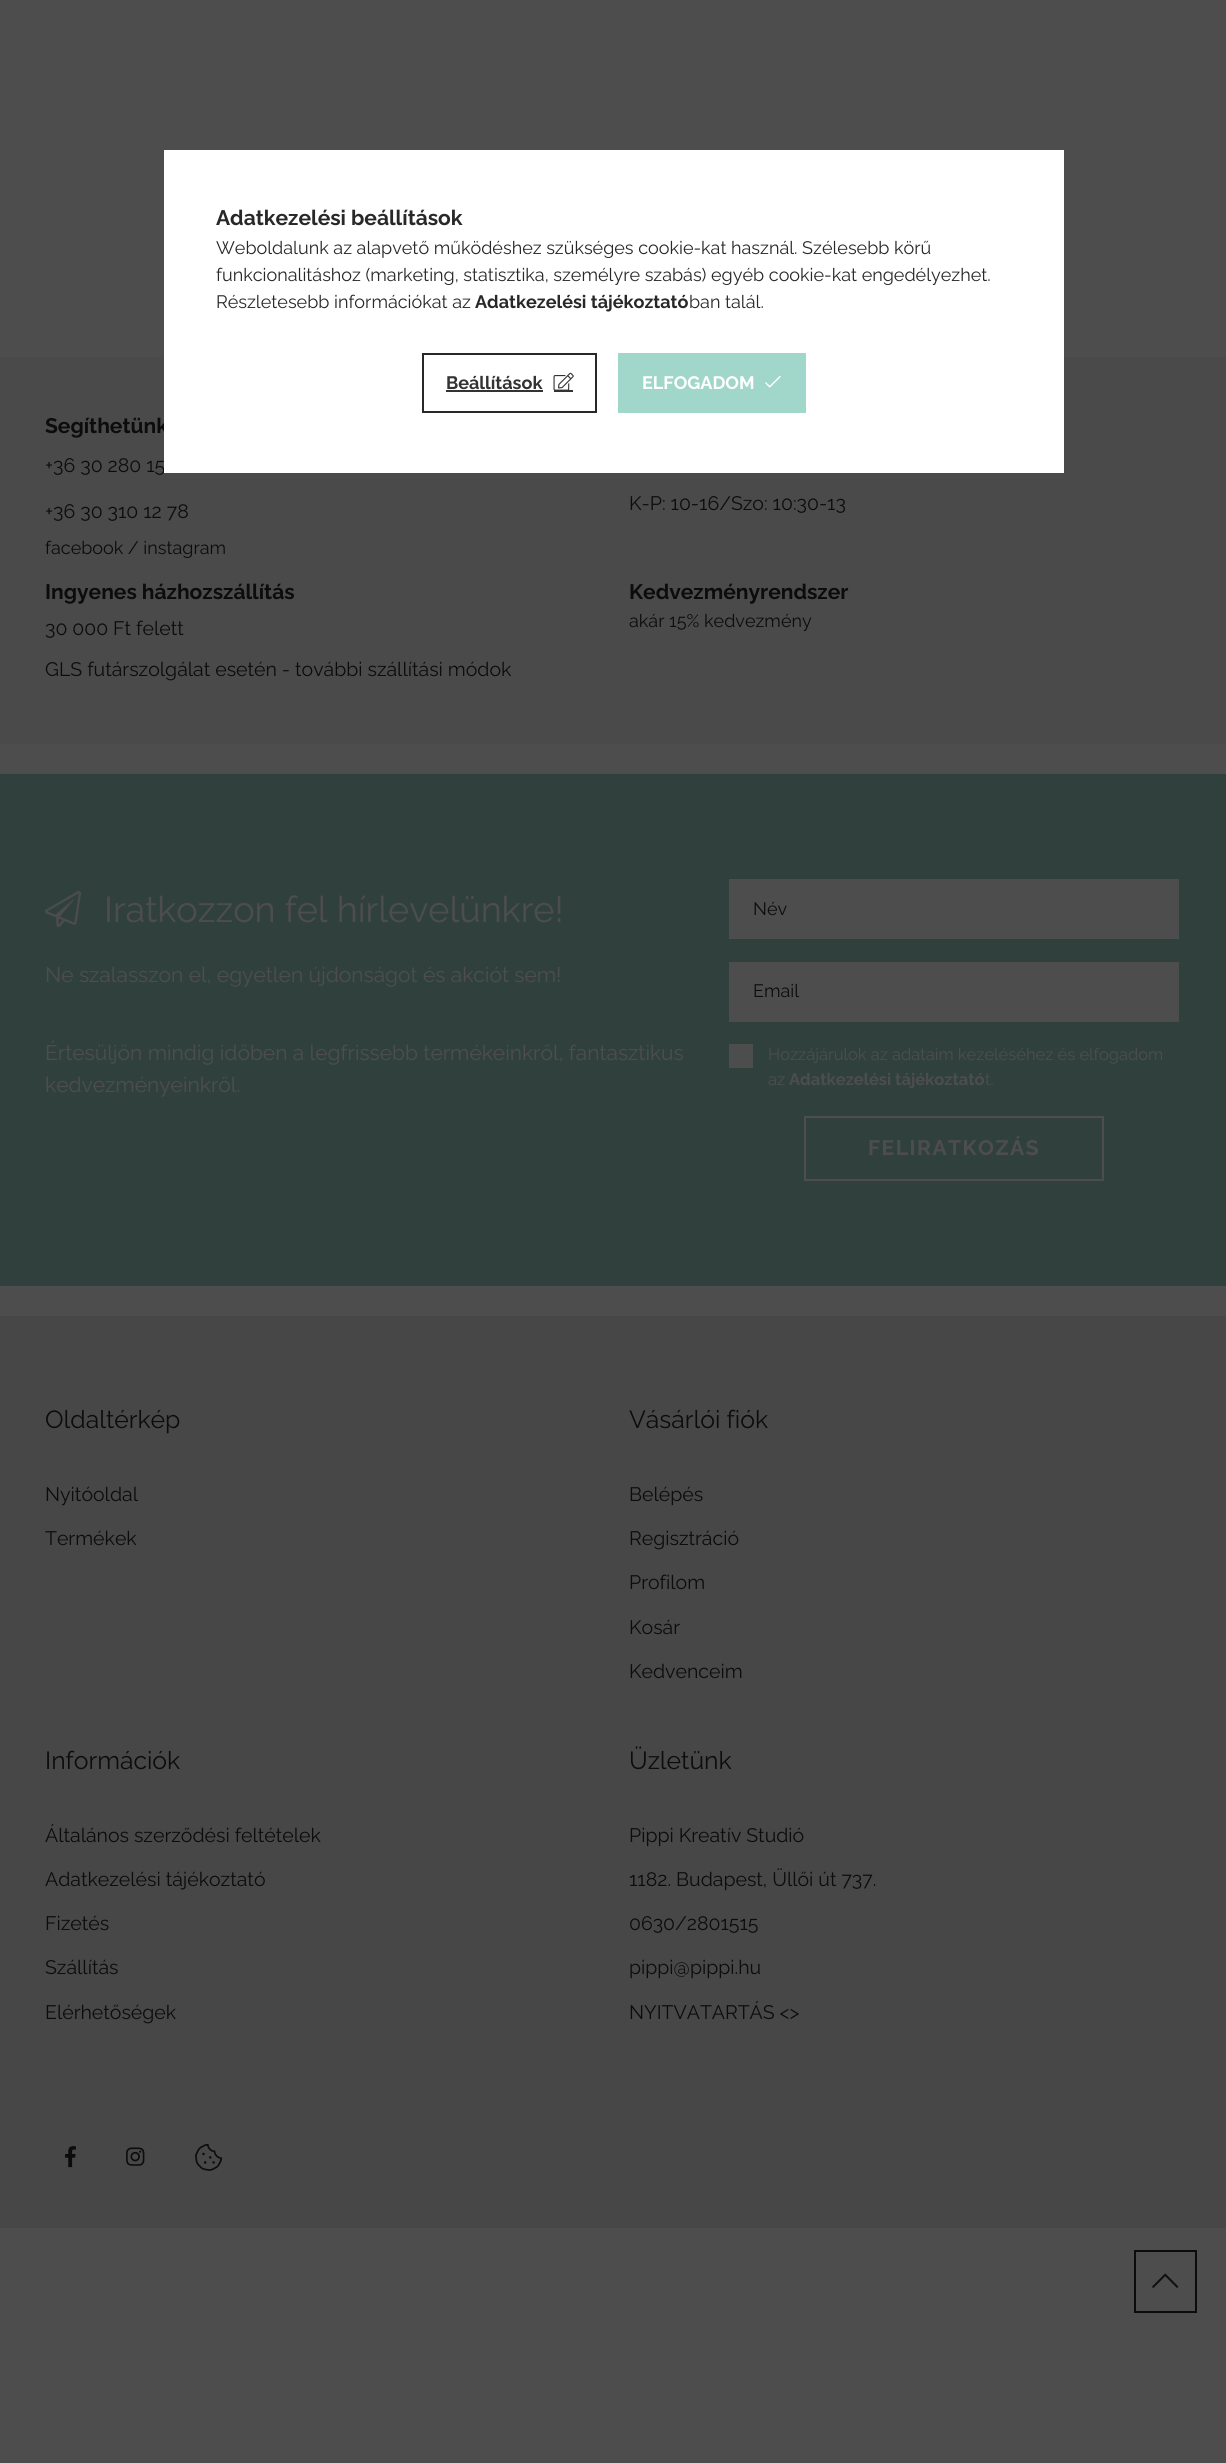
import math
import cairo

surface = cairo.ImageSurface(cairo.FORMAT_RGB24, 1226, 2463)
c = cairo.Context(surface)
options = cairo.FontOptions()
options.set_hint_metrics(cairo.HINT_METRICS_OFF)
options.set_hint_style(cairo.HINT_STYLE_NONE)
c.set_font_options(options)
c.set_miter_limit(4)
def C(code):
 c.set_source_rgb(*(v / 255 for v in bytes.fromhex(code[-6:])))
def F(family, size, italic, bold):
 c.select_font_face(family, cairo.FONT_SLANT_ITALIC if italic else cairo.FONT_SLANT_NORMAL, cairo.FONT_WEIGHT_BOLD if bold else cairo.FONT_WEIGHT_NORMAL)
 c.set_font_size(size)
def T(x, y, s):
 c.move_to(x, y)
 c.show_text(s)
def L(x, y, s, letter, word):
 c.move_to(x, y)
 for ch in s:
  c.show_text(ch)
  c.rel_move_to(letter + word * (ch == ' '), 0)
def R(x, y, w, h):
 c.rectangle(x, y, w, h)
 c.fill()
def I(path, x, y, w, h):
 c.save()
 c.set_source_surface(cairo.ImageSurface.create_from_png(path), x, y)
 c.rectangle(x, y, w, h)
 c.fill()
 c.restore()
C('4d4d4d')
c.paint()
C('4a4a4a')
R(0,357,1226,387)
F('Raleway',21,0,1)
C('0c0c0c')
T(45,433,'Segíthetünk')
F('Raleway',19.5,0,0)
T(45,472,'+36 30 280 15')
C('ffffff')
R(164,150,900,323)
F('Raleway',21,0,1)
C('282828')
T(216,225,'Adatkezelési beállítások')
F('Raleway',18,0,0)
T(216,254,'Weboldalunk az alapvető működéshez szükséges cookie-kat használ. Szélesebb körű')
T(216,281,'funkcionalitáshoz (marketing, statisztika, személyre szabás) egyéb cookie-kat engedélyezhet.')
T(216,308,'Részletesebb információkat az')
F('Raleway',18,0,1)
T(475,308,'Adatkezelési tájékoztató')
F('Raleway',18,0,0)
T(689,308,'ban talál.')
c.rectangle(423,354,173,58)
c.stroke()
F('Raleway',18,0,1)
C('333333')
T(446,389,'Beállítások')
R(446,390,97,2)
R(554,390,19,2)
I('1.png',553,372,21,19)
C('a1d7ca')
R(618,353,188,60)
C('ffffff')
T(642,389,'ELFOGADOM')
I('2.png',765,375,16,13)
F('Raleway',19.5,0,0)
C('0c0c0c')
T(45,518,'+36 30 310 12 78')
F('Raleway',18,0,0)
T(45,554,'facebook / instagram')
F('Raleway',19.5,0,0)
T(629,510,'K-P: 10-16/Szo: 10:30-13')
F('Raleway',21,0,1)
T(45,599,'Ingyenes házhozszállítás')
F('Raleway',19.5,0,0)
T(45,635,'30 000 Ft felett')
T(45,676,'GLS futárszolgálat esetén - további szállítási módok')
F('Raleway',21,0,1)
T(629,599,'Kedvezményrendszer')
F('Raleway',18,0,0)
T(629,627,'akár 15% kedvezmény')
C('30413d')
R(0,774,1226,512)
I('3.png',45,891,37,36)
F('Raleway',36,0,0)
C('4d4d4d')
T(104,922,'Iratkozzon fel hírlevelünkre!')
F('Raleway',21,0,0)
T(45,982,'Ne szalasszon el, egyetlen újdonságot és akciót sem!')
T(45,1060,'Értesüljön mindig időben a legfrissebb termékeinkről, fantasztikus')
T(45,1092,'kedvezményeinkről.')
c.rectangle(730,880,448,58)
c.fill_preserve()
c.stroke()
F('Raleway',18,0,0)
C('0c0c0c')
T(753,915,'Név')
C('4d4d4d')
c.rectangle(730,963,448,58)
c.fill_preserve()
c.stroke()
C('0c0c0c')
T(753,997,'Email')
C('4d4d4d')
R(729,1044,24,24)
F('Raleway',16.5,0,0)
T(768,1060,'Hozzájárulok az adataim kezeléséhez és elfogadom')
T(768,1085,'az')
F('Raleway',16.5,0,1)
T(789,1085,'Adatkezelési tájékoztató')
F('Raleway',16.5,0,0)
T(985,1085,'t.')
c.rectangle(805,1117,298,63)
c.stroke()
F('Raleway',21,0,1)
L(868,1155,'FELIRATKOZÁS',1.5,0)
C('474747')
R(0,1316,1226,912)
F('Raleway',24.75,0,0)
C('0c0c0c')
T(45,1428,'Oldaltérkép')
F('Raleway',19.5,0,0)
T(45,1501,'Nyitóoldal')
T(45,1545,'Termékek')
F('Raleway',24.75,0,0)
T(629,1428,'Vásárlói fiók')
F('Raleway',19.5,0,0)
T(629,1501,'Belépés')
T(629,1545,'Regisztráció')
T(629,1589,'Profilom')
T(629,1634,'Kosár')
T(629,1678,'Kedvenceim')
F('Raleway',24.75,0,0)
T(45,1769,'Információk')
F('Raleway',19.5,0,0)
T(45,1842,'Általános szerződési feltételek')
T(45,1886,'Adatkezelési tájékoztató')
T(45,1930,'Fizetés')
T(45,1974,'Szállítás')
T(45,2019,'Elérhetőségek')
F('Raleway',24.75,0,0)
T(629,1769,'Üzletünk')
F('Raleway',19.5,0,0)
T(629,1842,'Pippi Kreatív Studió')
T(629,1886,'1182. Budapest, Üllői út 737.')
T(629,1930,'0630/2801515')
T(629,1974,'pippi@pippi.hu')
T(629,2019,'NYITVATARTÁS <>')
I('4.png',65,2146,11,22)
I('5.png',126,2147,19,19)
I('6.png',195,2143,28,28)
c.rectangle(1135,2251,61,61)
c.stroke()
I('7.png',1152,2273,27,15)
surface.write_to_png('o.png')
